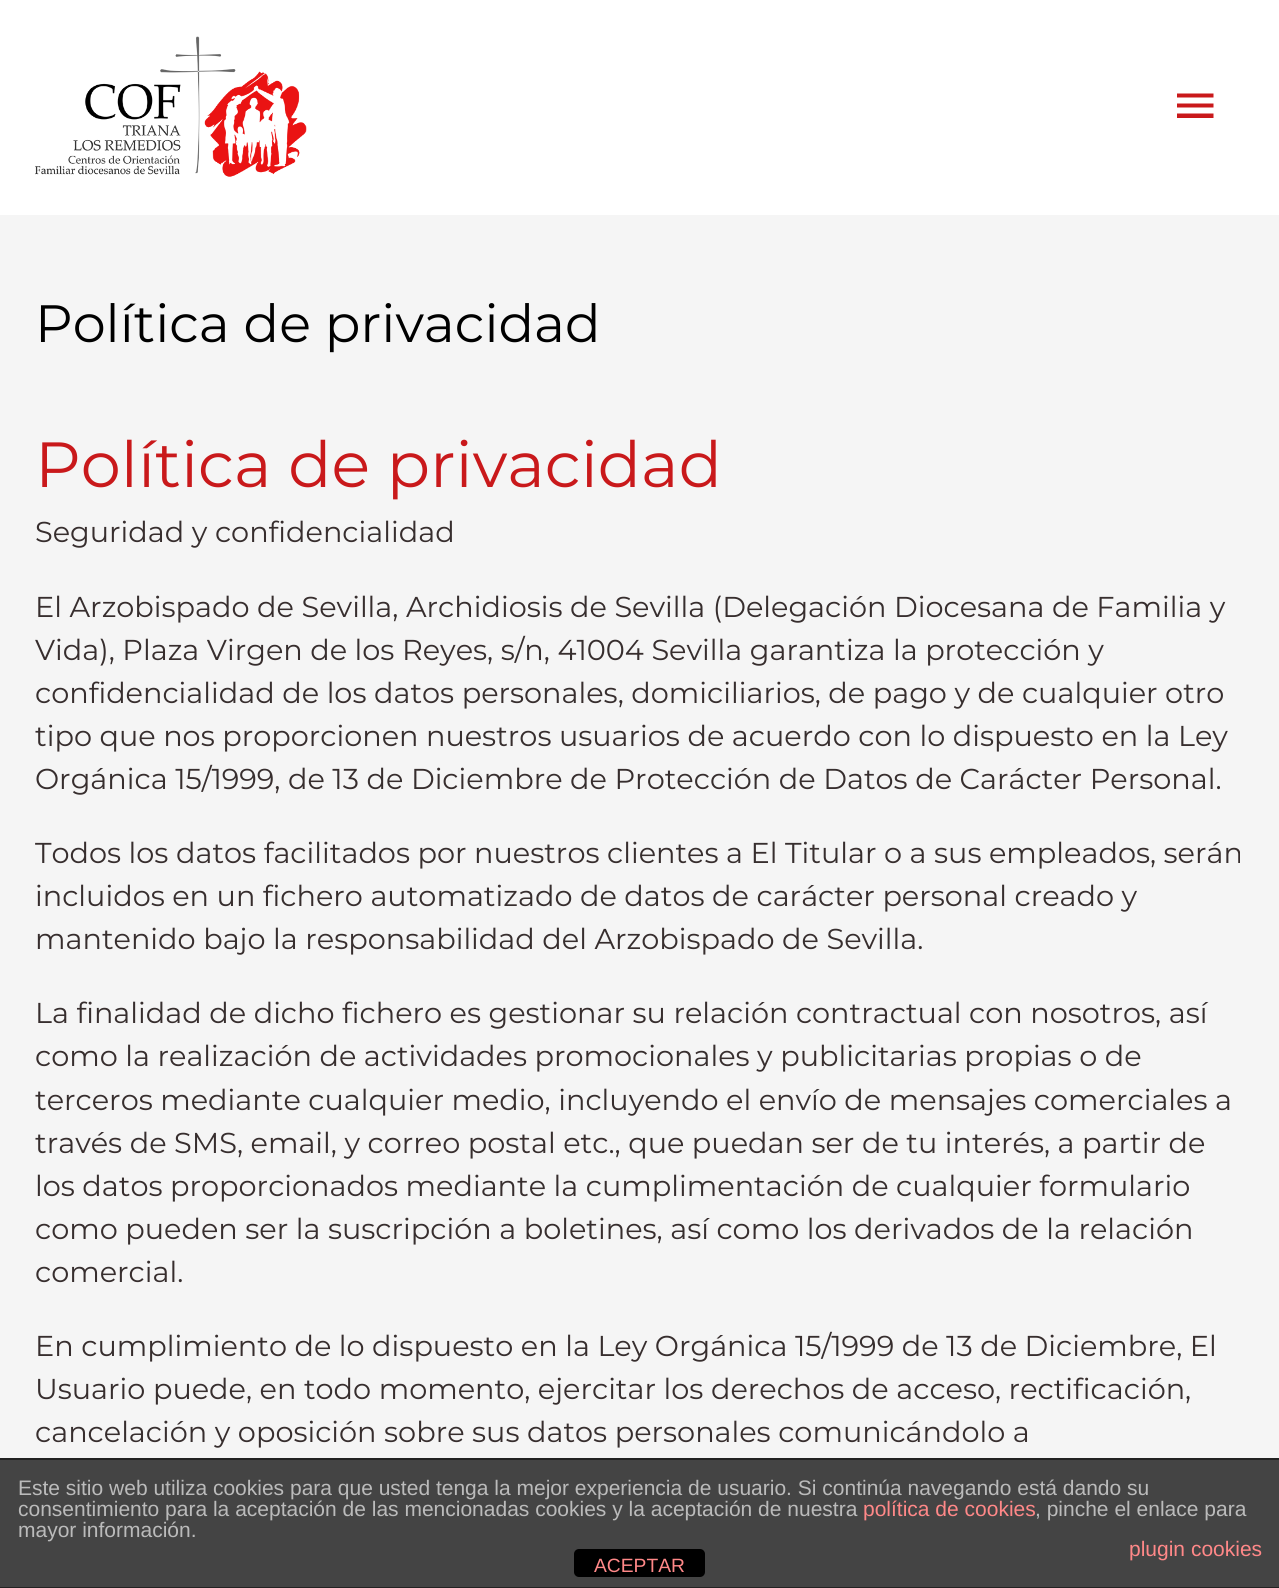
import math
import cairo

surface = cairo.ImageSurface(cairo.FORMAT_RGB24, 1279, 1588)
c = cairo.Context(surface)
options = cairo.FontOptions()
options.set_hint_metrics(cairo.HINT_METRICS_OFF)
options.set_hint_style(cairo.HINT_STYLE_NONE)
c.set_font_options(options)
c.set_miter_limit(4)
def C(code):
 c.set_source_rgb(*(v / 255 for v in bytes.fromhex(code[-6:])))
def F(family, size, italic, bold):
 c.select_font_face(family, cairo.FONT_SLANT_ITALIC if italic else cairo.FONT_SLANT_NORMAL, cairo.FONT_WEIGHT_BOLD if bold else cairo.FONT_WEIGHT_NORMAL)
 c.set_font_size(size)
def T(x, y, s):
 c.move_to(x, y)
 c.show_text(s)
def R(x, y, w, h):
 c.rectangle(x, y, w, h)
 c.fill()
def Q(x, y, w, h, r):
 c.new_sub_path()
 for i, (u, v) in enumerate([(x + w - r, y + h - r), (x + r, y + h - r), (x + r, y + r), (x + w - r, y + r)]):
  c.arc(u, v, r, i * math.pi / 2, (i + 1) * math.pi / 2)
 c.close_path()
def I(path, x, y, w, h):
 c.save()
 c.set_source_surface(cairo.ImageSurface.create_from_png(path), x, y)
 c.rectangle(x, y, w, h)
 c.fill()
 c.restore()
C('f5f5f5')
c.paint()
C('ffffff')
R(0,0,1279,215)
I('1.png',35,36,272,141)
C('c9191b')
c.new_path()
c.move_to(1177,93.5)
c.line_to(1213.5,93.5)
c.line_to(1213.5,97.5)
c.line_to(1177,97.5)
c.close_path()
c.move_to(1177,107.5)
c.line_to(1177,103.5)
c.line_to(1213.5,103.5)
c.line_to(1213.5,107.5)
c.close_path()
c.move_to(1177,118)
c.line_to(1177,113.5)
c.line_to(1213.5,113.5)
c.line_to(1213.5,118)
c.close_path()
c.fill()
F('Montserrat',52.5,0,0)
C('000000')
T(35,342,'Política de privacidad')
F('Montserrat',63.75,0,0)
C('c9191b')
T(35,487,'Política de privacidad')
F('Montserrat',28.75,0,0)
C('372e2e')
T(35,542,'Seguridad y confidencialidad')
T(35,617,'El Arzobispado de Sevilla, Archidiosis de Sevilla (Delegación Diocesana de Familia y')
T(35,660,'Vida), Plaza Virgen de los Reyes, s/n, 41004 Sevilla garantiza la protección y')
T(35,703,'confidencialidad de los datos personales, domiciliarios, de pago y de cualquier otro')
T(35,746,'tipo que nos proporcionen nuestros usuarios de acuerdo con lo dispuesto en la Ley')
T(35,789,'Orgánica 15/1999, de 13 de Diciembre de Protección de Datos de Carácter Personal.')
T(35,863,'Todos los datos facilitados por nuestros clientes a El Titular o a sus empleados, serán')
T(35,906,'incluidos en un fichero automatizado de datos de carácter personal creado y')
T(35,949,'mantenido bajo la responsabilidad del Arzobispado de Sevilla.')
T(35,1023,'La finalidad de dicho fichero es gestionar su relación contractual con nosotros, así')
T(35,1066,'como la realización de actividades promocionales y publicitarias propias o de')
T(35,1110,'terceros mediante cualquier medio, incluyendo el envío de mensajes comerciales a')
T(35,1153,'través de SMS, email, y correo postal etc., que puedan ser de tu interés, a partir de')
T(35,1196,'los datos proporcionados mediante la cumplimentación de cualquier formulario')
T(35,1239,'como pueden ser la suscripción a boletines, así como los derivados de la relación')
T(35,1282,'comercial.')
T(35,1356,'En cumplimiento de lo dispuesto en la Ley Orgánica 15/1999 de 13 de Diciembre, El')
T(35,1399,'Usuario puede, en todo momento, ejercitar los derechos de acceso, rectificación,')
T(35,1442,'cancelación y oposición sobre sus datos personales comunicándolo a')
C('444444')
R(0,1460,1279,127)
C('222222')
R(0,1458,1279,2)
R(0,1587,1279,1)
F('Liberation Sans',21,0,0)
C('bbbbbb')
T(18,1495,'Este sitio web utiliza cookies para que usted tenga la mejor experiencia de usuario. Si continúa navegando está dando su')
T(18,1516,'consentimiento para la aceptación de las mencionadas cookies y la aceptación de nuestra')
C('ff8888')
T(863,1516,'política de cookies')
C('bbbbbb')
T(1035,1516,', pinche el enlace para')
T(18,1537,'mayor información.')
C('ff8888')
T(1129,1556,'plugin cookies')
C('000000')
Q(574,1549,131,28,5)
c.fill()
F('Liberation Sans',19.25,0,0)
C('ff8888')
T(594,1572,'ACEPTAR')
surface.write_to_png('o.png')
